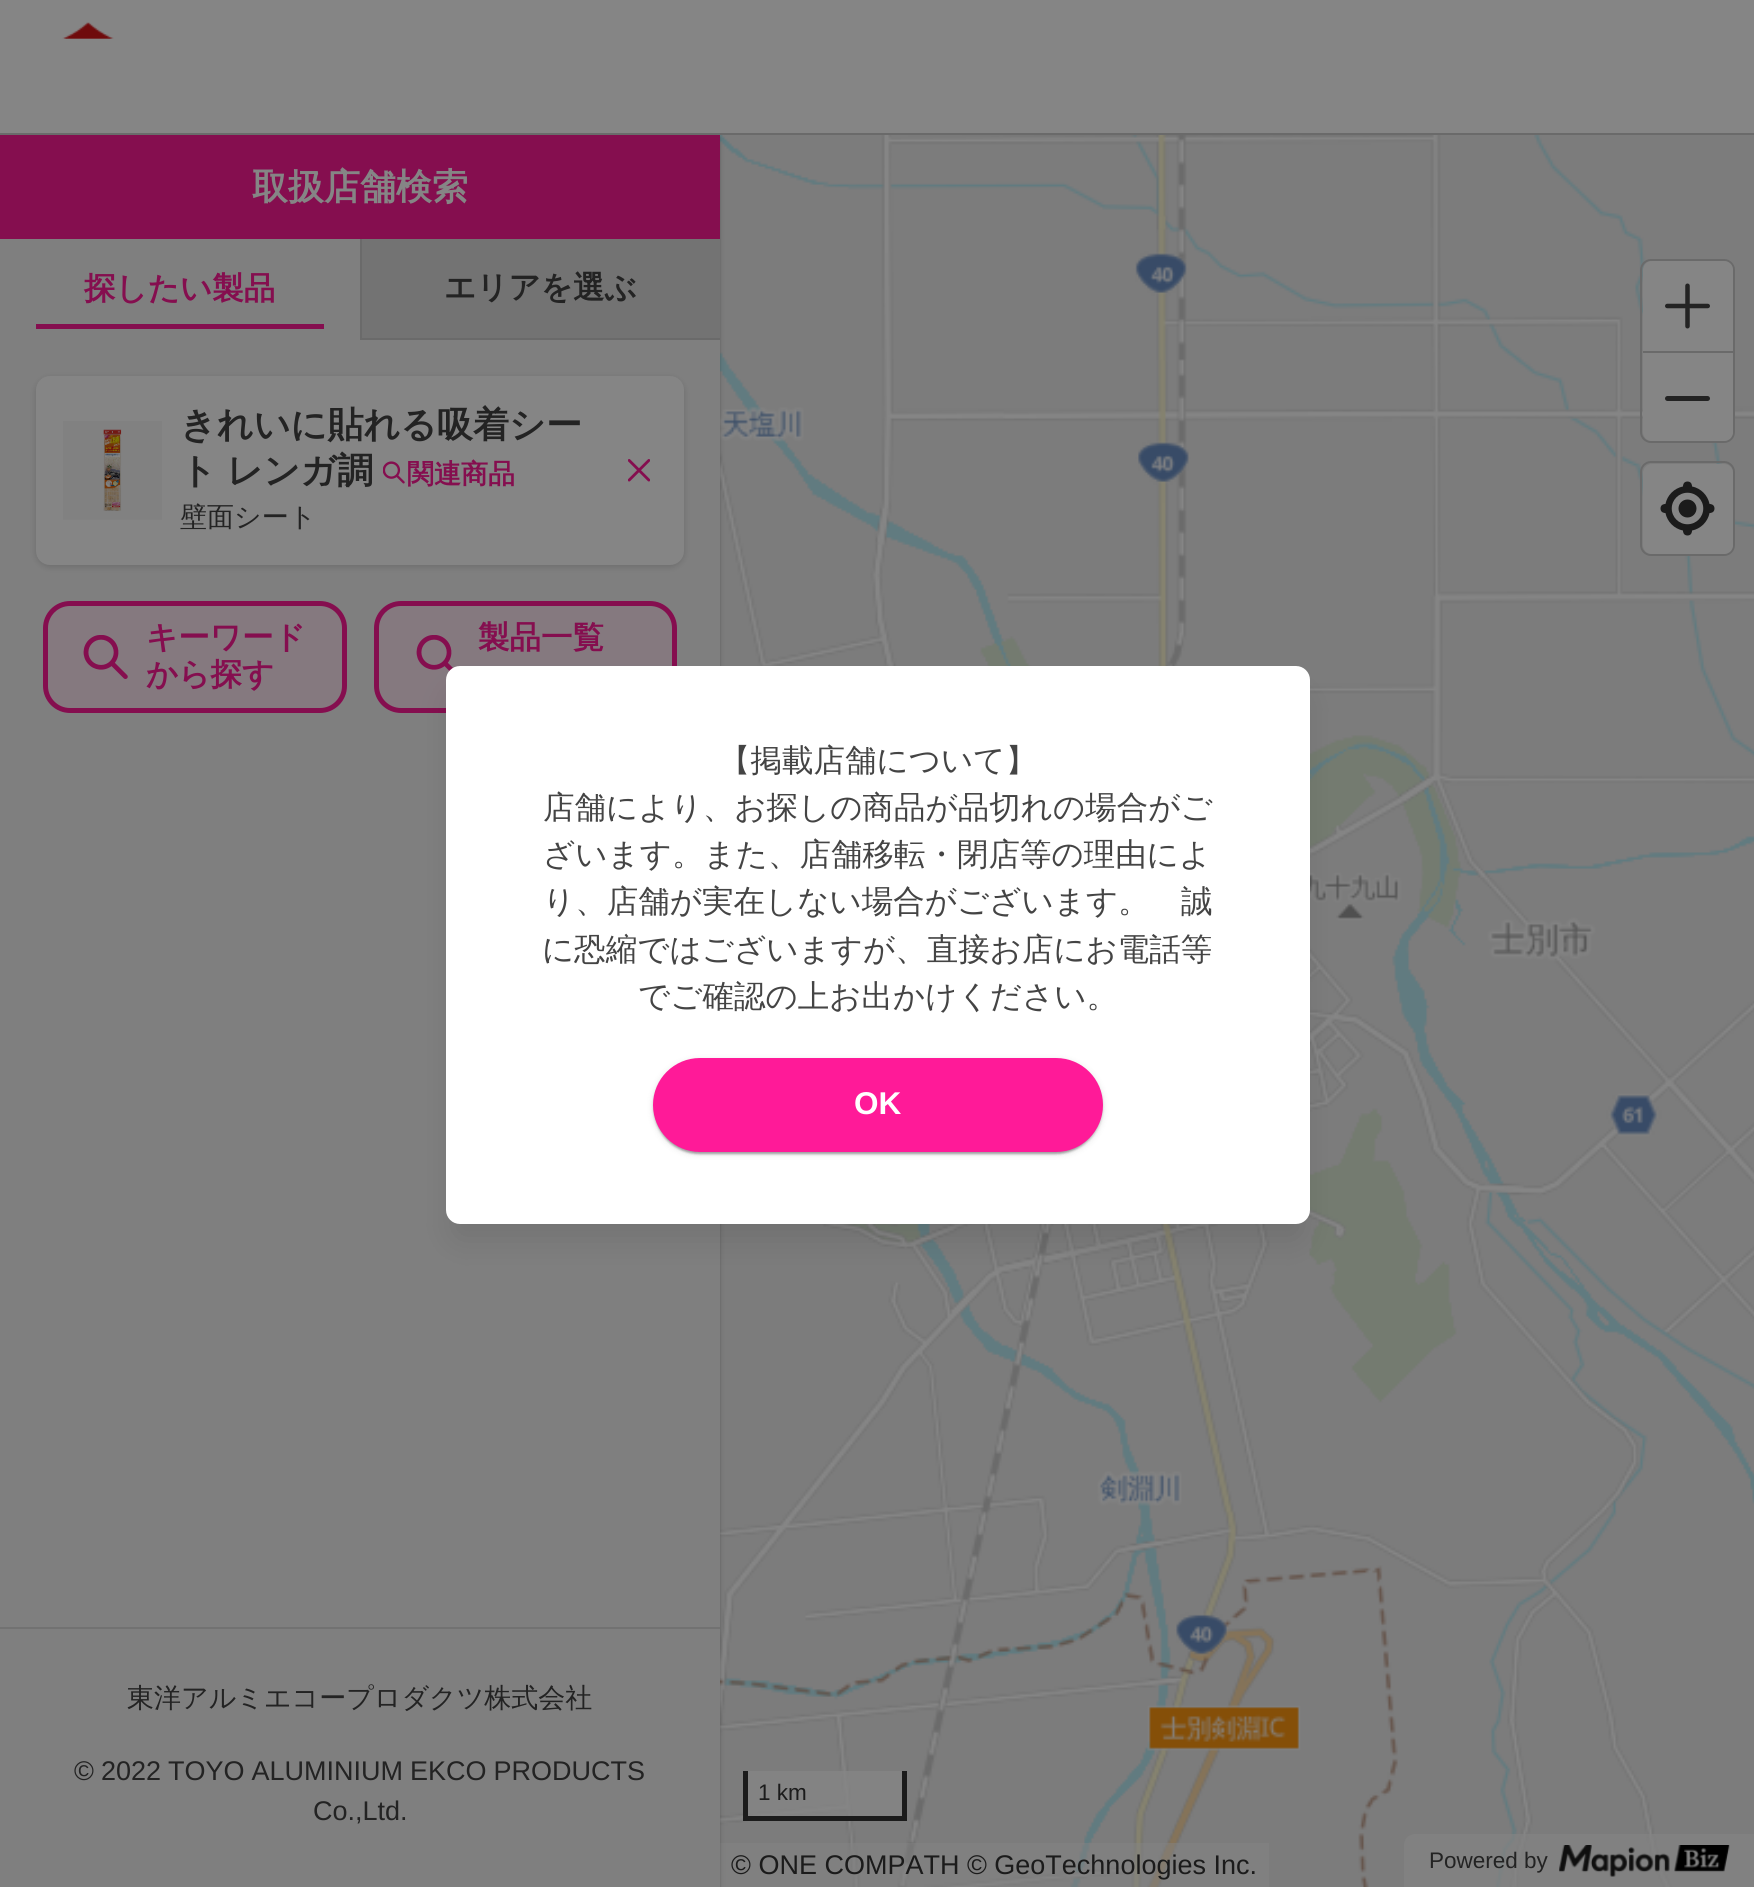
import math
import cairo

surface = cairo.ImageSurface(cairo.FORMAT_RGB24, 1754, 1887)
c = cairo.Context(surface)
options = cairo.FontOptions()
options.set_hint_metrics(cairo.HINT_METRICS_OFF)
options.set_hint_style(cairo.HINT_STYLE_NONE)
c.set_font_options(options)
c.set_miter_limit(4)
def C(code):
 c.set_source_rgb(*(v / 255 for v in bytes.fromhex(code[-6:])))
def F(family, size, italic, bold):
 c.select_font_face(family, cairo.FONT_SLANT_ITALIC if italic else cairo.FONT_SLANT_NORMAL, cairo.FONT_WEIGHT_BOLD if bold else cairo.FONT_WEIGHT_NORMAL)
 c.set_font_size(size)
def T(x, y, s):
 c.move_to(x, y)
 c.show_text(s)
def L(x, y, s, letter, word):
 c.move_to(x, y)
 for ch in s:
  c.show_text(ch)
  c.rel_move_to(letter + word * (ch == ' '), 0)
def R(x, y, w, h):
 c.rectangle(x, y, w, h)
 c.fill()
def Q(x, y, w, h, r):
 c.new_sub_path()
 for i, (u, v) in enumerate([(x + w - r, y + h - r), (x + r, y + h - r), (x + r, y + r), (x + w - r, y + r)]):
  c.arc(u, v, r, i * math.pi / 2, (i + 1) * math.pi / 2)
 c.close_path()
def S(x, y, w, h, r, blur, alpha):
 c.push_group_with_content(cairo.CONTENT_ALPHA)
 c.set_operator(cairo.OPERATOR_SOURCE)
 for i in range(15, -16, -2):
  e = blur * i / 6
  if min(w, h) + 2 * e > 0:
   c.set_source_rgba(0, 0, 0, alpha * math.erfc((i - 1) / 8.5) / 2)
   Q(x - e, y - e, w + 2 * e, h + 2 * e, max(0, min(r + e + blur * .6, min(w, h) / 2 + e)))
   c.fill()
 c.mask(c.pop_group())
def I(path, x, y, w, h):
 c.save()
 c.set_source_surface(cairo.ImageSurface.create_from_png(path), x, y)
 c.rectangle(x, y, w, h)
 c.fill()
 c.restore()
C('ffffff')
c.paint()
I('7.png',720,135,1034,1752)
c.set_source_rgba(0.522,0.522,0.522,0.5)
R(720,1843,549,44)
C('000000')
S(0,137,720,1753,0,3.5,.12)
S(0,137,720,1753,0,1,.14)
C('6a6a6a')
R(0,133,1754,2)
C('858585')
R(0,0,1754,133)
I('1.png',62,22,52,17)
C('7f7f7f')
R(0,239,720,1648)
C('850e4f')
R(0,135,720,104)
F('WenQuanYi Zen Hei',36,0,1)
C('858585')
T(252,199,'取扱店舗検索')
F('WenQuanYi Zen Hei',31.5,0,1)
C('850e4f')
T(84,299,'探したい製品')
R(36,324,288,5)
C('737373')
R(362,239,358,99)
C('6a6a6a')
R(360,338,360,2)
R(360,239,2,101)
C('232323')
T(444,298,'エリアを選ぶ')
C('000000')
S(36,378,648,189,14,3.5,.15)
C('858585')
Q(36,376,648,189,14)
c.fill()
I('2.png',63,421,99,99)
F('WenQuanYi Zen Hei',36,0,1)
C('232323')
T(180,437,'きれいに貼れる吸着シー')
L(180,483,'ト レンガ調',0,-1)
I('3.png',383,461,22,23)
F('WenQuanYi Zen Hei',27,0,1)
C('850e4f')
T(407,483,'関連商品')
F('WenQuanYi Zen Hei Medium',27,0,0)
C('232323')
T(180,526,'壁面シート')
I('4.png',628,459,22,23)
C('858585')
Q(43,601,304,112,27)
c.fill()
c.set_source_rgba(0.522,0.055,0.31,0.1)
Q(45.5,603.5,299,107,24.5)
c.fill_preserve()
C('850e4f')
c.set_line_width(5)
c.stroke()
I('5.png',83,635,45,44)
F('WenQuanYi Zen Hei',31.5,0,1)
T(146,648,'キーワード')
T(146,685,'から探す')
C('858585')
Q(374,601,303,112,27)
c.fill()
c.set_source_rgba(0.522,0.055,0.31,0.1)
Q(376.5,603.5,298,107,24.5)
c.fill_preserve()
C('850e4f')
c.stroke()
I('6.png',416,635,37,37)
T(478,648,'製品一覧')
C('727272')
R(0,1627,720,2)
F('WenQuanYi Zen Hei Medium',27,0,0)
C('232323')
T(127,1707,'東洋アルミエコープロダクツ株式会社')
F('Liberation Sans',27,0,0)
L(74,1780,'© 2022 TOYO ALUMINIUM EKCO PRODUCTS',0,-.5)
T(313,1820,'Co.,Ltd.')
Q(1641,260,93,182,10)
C('6a6a6a')
c.set_line_width(2)
c.stroke()
C('858585')
Q(1643,261,90,180,9)
c.fill()
I('8.png',1665,283,45,46)
C('6a6a6a')
R(1643,351,90,2)
C('232323')
Q(1665,396,45,5,2.5)
c.fill()
Q(1641,462,93,93,10)
C('6a6a6a')
c.stroke()
C('858585')
Q(1643,464,90,90,9)
c.fill()
I('9.png',1660,481,55,55)
c.set_source_rgba(0.522,0.522,0.522,0.75)
R(748,1771,154,45)
C('1b1b1b')
R(902,1771,5,49)
R(743,1816,164,5)
R(743,1771,5,49)
F('Liberation Sans',22.5,0,0)
T(758,1800,'1 km')
F('Liberation Sans',27,0,0)
T(731,1874,'© ONE COMPATH © GeoTechnologies Inc.')
c.set_source_rgba(0.518,0.518,0.518,0.7)
c.new_path()
c.move_to(1415,1834)
c.line_to(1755,1834)
c.line_to(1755,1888)
c.line_to(1404,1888)
c.line_to(1404,1845)
c.curve_to(1404,1839,1409,1834,1415,1834)
c.close_path()
c.fill()
F('Liberation Sans',22.5,0,0)
C('232323')
T(1429,1868,'Powered by')
I('10.png',1559,1845,171,32)
C('000000')
S(452,695,851,545,7,17,.1)
C('ffffff')
Q(446,666,864,558,14)
c.fill()
F('WenQuanYi Zen Hei Medium',31.5,0,0)
C('444444')
T(719,771,'【掲載店舗について】')
T(543,818,'店舗により、お探しの商品が品切れの場合がご')
T(543,865,'ざいます。また、店舗移転・閉店等の理由によ')
T(543,912,'り、店舗が実在しない場合がございます。　誠')
T(542,960,'に恐縮ではございますが、直接お店にお電話等')
T(638,1007,'でご確認の上お出かけください。')
C('000000')
S(653,1060,450,94,47,3.5,.12)
S(653,1060,450,94,47,1,.14)
S(655,1064,445,90,45,1,.2)
C('ff1a98')
Q(653,1058,450,94,47)
c.fill()
F('Liberation Sans',31.5,0,1)
C('ffffff')
T(854,1114,'OK')
surface.write_to_png('o.png')
